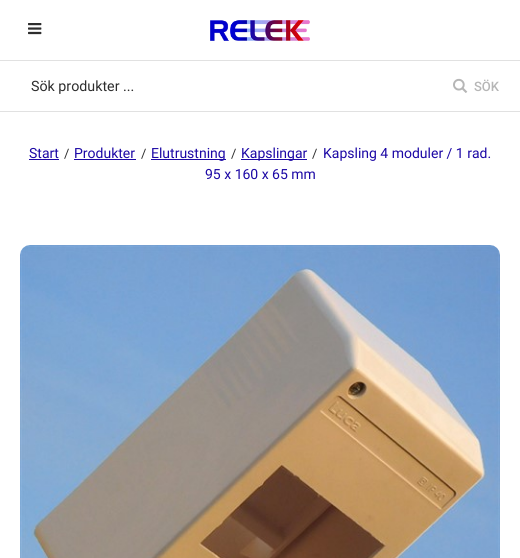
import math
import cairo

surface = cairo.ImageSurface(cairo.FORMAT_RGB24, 520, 558)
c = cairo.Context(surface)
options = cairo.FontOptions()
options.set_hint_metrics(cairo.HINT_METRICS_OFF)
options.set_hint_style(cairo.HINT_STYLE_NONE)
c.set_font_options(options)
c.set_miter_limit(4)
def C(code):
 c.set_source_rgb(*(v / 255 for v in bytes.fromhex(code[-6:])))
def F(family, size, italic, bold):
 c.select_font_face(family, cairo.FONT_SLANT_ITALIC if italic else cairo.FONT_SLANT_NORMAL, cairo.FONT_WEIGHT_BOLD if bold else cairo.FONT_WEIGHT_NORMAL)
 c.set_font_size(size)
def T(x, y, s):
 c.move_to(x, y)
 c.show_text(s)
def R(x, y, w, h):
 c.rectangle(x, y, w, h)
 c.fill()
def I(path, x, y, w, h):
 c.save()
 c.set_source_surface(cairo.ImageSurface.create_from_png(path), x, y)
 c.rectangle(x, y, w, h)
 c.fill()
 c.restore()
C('ffffff')
c.paint()
C('e1e1e1')
R(0,60,520,1)
I('1.png',28,23,14,12)
I('2.png',210,20,100,23)
R(0,111,520,1)
F('Roboto',14.25,0,0)
C('2d2d2d')
T(31,91,'Sök produkter ...')
I('3.png',453,78,15,15)
F('Roboto Medium',13,0,0)
C('b6b6b6')
T(474,91,'SÖK')
F('Roboto',14,0,0)
C('1c08a5')
T(29,158,'Start')
R(29,159,30,1)
F('Roboto',13,0,0)
C('2d2d2d')
T(64,158,'/')
F('Roboto',14,0,0)
C('1c08a5')
T(74,158,'Produkter')
R(74,159,62,1)
F('Roboto',13,0,0)
C('2d2d2d')
T(141,158,'/')
C('1c08a5')
R(151,159,75,1)
F('Roboto',14,0,0)
T(151,158,'Elutrustning')
F('Roboto',13,0,0)
C('2d2d2d')
T(231,158,'/')
C('1c08a5')
R(241,159,66,1)
F('Roboto',14,0,0)
T(241,158,'Kapslingar')
F('Roboto',13,0,0)
C('2d2d2d')
T(312,158,'/')
F('Roboto',14,0,0)
C('1c08a5')
T(323,158,'Kapsling 4 moduler / 1 rad.')
T(205,179,'95 x 160 x 65 mm')
I('4.png',20,245,480,313)
surface.write_to_png('o.png')
